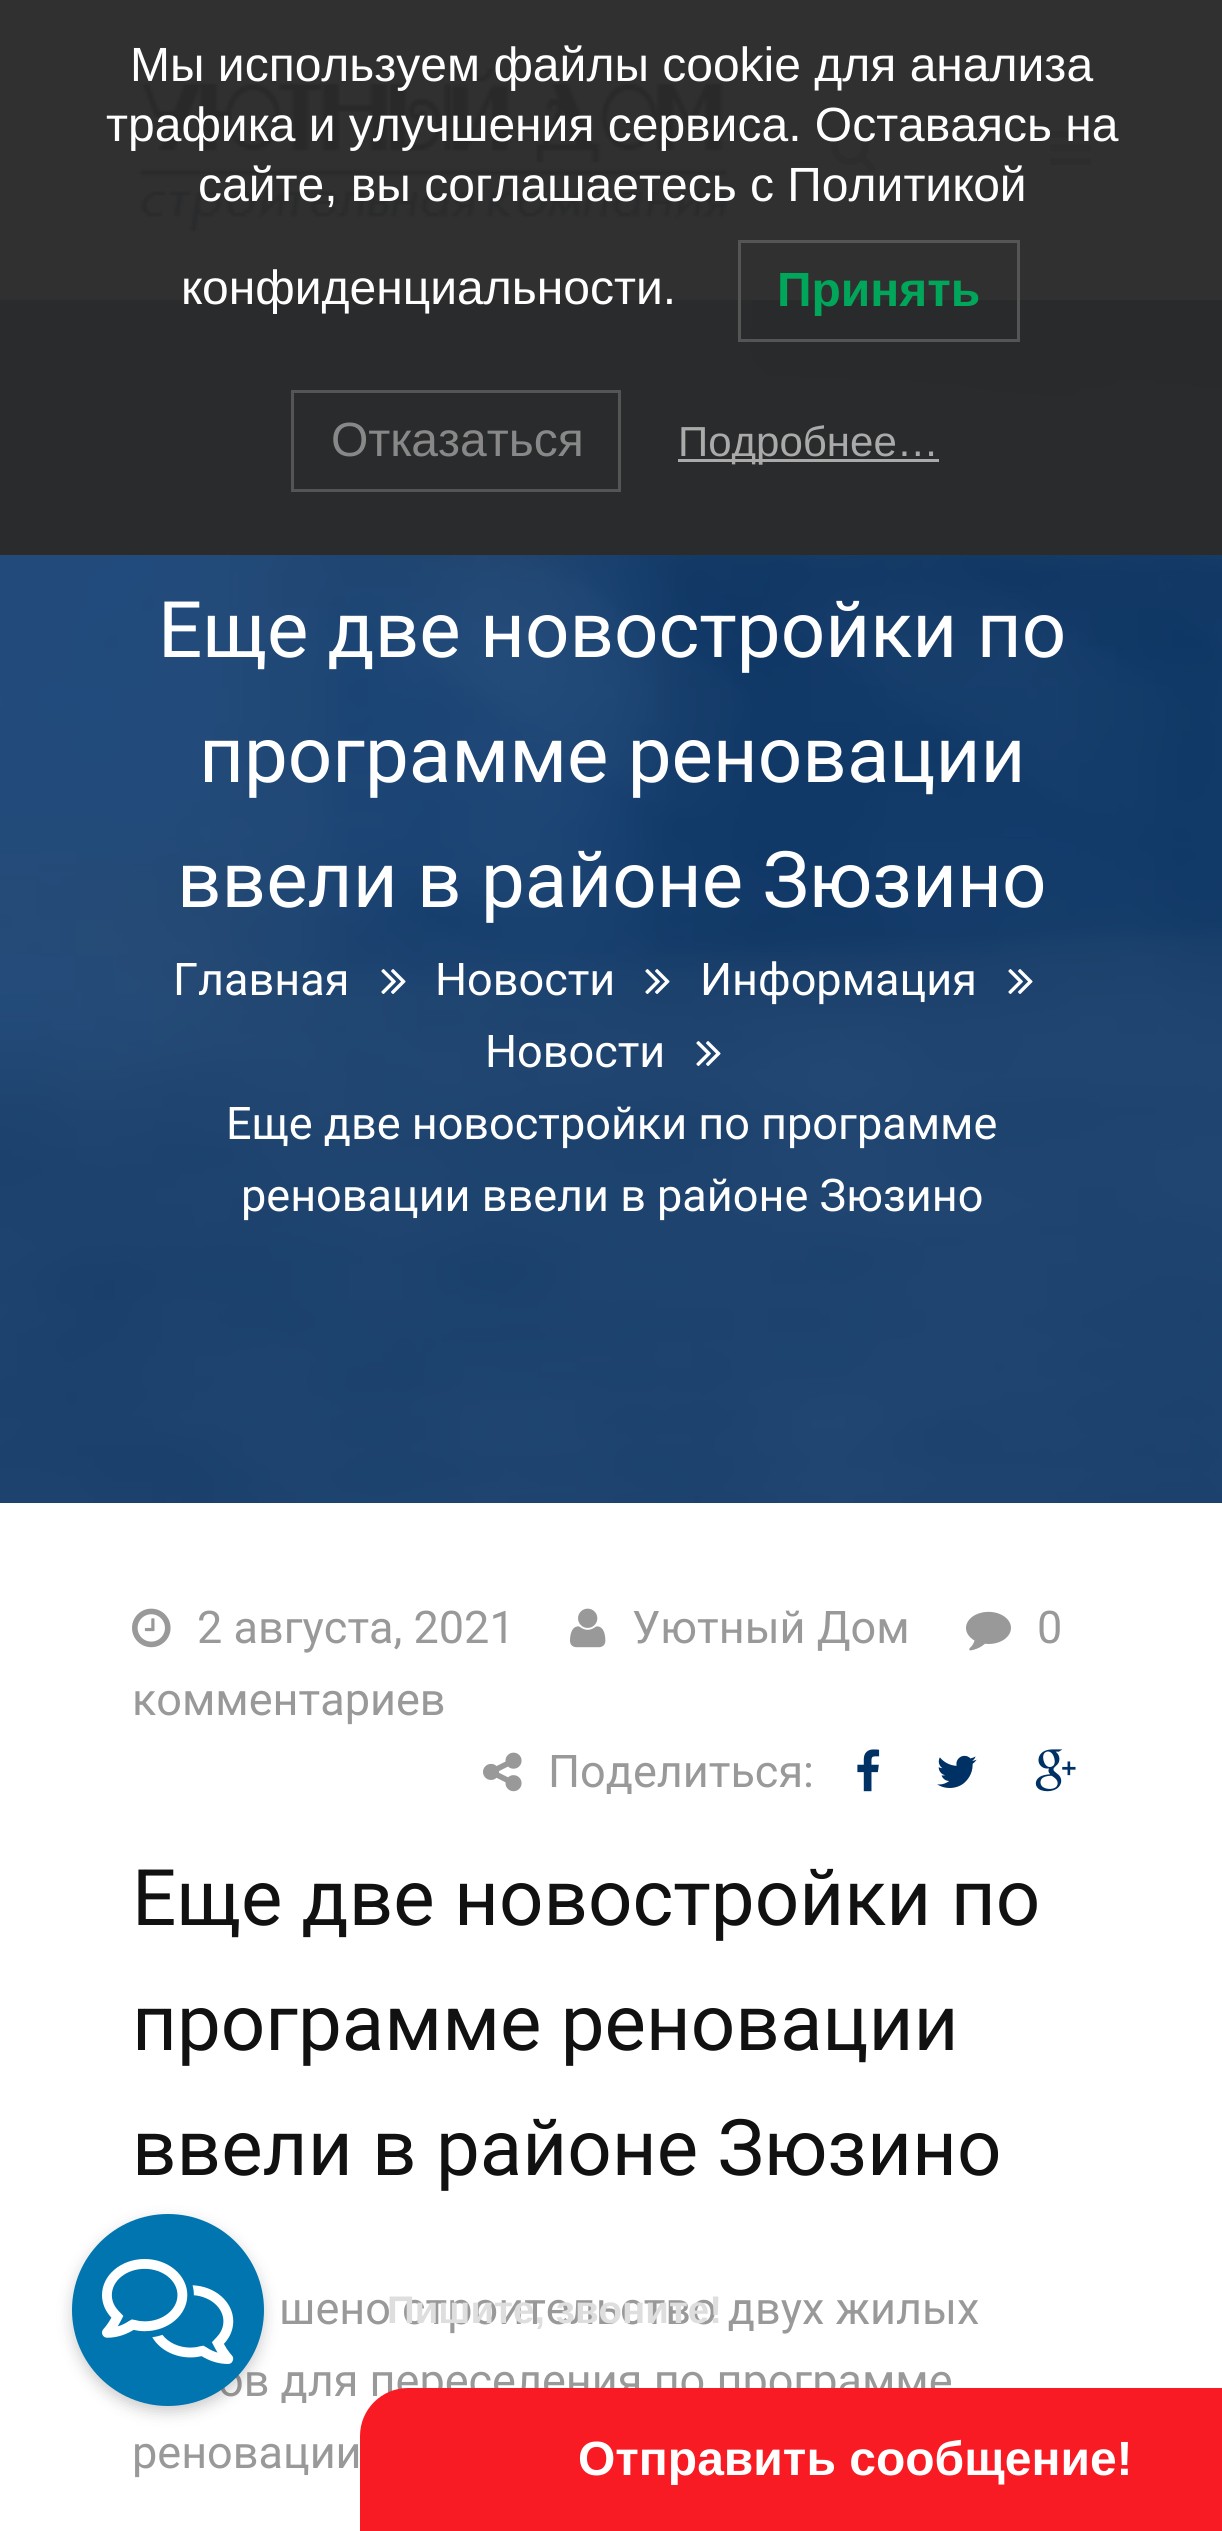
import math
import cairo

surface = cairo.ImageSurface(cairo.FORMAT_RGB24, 1222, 2531)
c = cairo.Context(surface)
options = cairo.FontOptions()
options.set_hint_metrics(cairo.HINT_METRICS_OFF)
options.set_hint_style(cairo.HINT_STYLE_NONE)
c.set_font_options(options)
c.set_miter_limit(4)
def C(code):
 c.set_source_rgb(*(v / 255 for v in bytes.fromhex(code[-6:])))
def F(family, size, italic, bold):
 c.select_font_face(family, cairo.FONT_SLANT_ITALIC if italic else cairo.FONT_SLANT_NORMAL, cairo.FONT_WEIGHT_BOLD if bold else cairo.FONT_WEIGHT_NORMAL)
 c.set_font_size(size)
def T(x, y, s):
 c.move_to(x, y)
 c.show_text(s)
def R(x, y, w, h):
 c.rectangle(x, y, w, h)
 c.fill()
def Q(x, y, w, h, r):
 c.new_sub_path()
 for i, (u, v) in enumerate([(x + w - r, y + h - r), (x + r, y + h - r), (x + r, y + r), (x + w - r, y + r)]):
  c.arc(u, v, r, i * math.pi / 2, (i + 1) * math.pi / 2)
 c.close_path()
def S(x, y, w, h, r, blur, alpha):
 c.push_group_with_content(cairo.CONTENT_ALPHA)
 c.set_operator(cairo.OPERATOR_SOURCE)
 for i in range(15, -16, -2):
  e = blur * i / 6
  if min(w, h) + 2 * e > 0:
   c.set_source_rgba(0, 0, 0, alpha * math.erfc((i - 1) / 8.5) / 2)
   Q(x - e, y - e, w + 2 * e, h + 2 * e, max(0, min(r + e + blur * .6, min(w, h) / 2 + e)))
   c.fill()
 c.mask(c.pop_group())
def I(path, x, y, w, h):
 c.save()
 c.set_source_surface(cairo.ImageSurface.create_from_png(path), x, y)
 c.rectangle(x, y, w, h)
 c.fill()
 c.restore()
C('ffffff')
c.paint()
I('1.png',137,68,593,164)
I('2.png',831,127,45,45)
I('3.png',1050,130,42,35)
I('4.png',0,300,1222,1203)
c.set_source_rgba(0.169,0.169,0.169,0.97)
R(0,0,1222,552)
C('2b2b2b')
R(0,552,1222,3)
F('Liberation Sans',48,0,0)
C('ffffff')
T(130,81,'Мы используем файлы cookie для анализа')
T(106,141,'трафика и улучшения сервиса. Оставаясь на')
T(198,201,'сайте, вы соглашаетесь с Политикой')
T(181,304,'конфиденциальности.')
c.rectangle(739.5,241.5,279,99)
C('555555')
c.set_line_width(3)
c.stroke()
F('Liberation Sans',48,0,1)
C('00a65a')
T(777,306,'Принять')
c.rectangle(292.5,391.5,327,99)
C('555555')
c.stroke()
F('Liberation Sans',48,0,0)
C('888888')
T(331,456,'Отказаться')
C('aaaaaa')
R(678,459,261,3)
F('Liberation Sans',42,0,0)
T(678,456,'Подробнее…')
F('Roboto',78,0,0)
C('ffffff')
T(158,657,'Еще две новостройки по')
T(199,782,'программе реновации')
T(177,907,'ввели в районе Зюзино')
F('Roboto',45,0,0)
T(173,995,'Главная')
I('5.png',381,969,25,25)
T(435,995,'Новости')
I('6.png',645,969,25,25)
T(700,995,'Информация')
I('7.png',1008,969,25,25)
T(485,1067,'Новости')
I('8.png',696,1041,25,25)
T(226,1139,'Еще две новостройки по программе')
T(241,1211,'реновации ввели в районе Зюзино')
I('9.png',966,1611,45,40)
C('999999')
T(1037,1643,'0')
T(132,1715,'комментариев')
I('10.png',132,1608,39,40)
T(197,1643,'2 августа, 2021')
I('11.png',570,1608,36,40)
T(632,1643,'Уютный Дом')
I('12.png',483,1752,39,40)
T(548,1787,'Поделиться:')
I('13.png',857,1749,23,43)
I('14.png',937,1755,40,33)
I('15.png',1035,1749,41,43)
F('Roboto',78,0,0)
C('111111')
T(132,1925,'Еще две новостройки по')
T(132,2050,'программе реновации')
T(132,2175,'ввели в районе Зюзино')
F('Roboto',45,0,0)
C('999999')
T(279,2324,'шено строительство двух жилых')
T(218,2396,'ов для переселения по программе')
T(132,2468,'реновации')
C('000000')
S(72,2220,192,192,96,7.5,.2)
C('0075af')
c.arc(168,2310,96,0,2 * math.pi)
c.fill()
I('16.png',102,2259,132,105)
F('Liberation Sans',38.5,0,1)
C('dedede')
T(387,2323,'Пишите, звоните!')
C('f91b24')
c.new_path()
c.move_to(408,2388)
c.line_to(1222,2388)
c.curve_to(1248.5,2388,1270,2409.5,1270,2436)
c.line_to(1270,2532)
c.line_to(360,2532)
c.line_to(360,2436)
c.curve_to(360,2409.5,381.5,2388,408,2388)
c.close_path()
c.fill()
F('Liberation Sans',48,0,1)
C('ffffff')
T(578,2475,'Отправить сообщение!')
surface.write_to_png('o.png')
